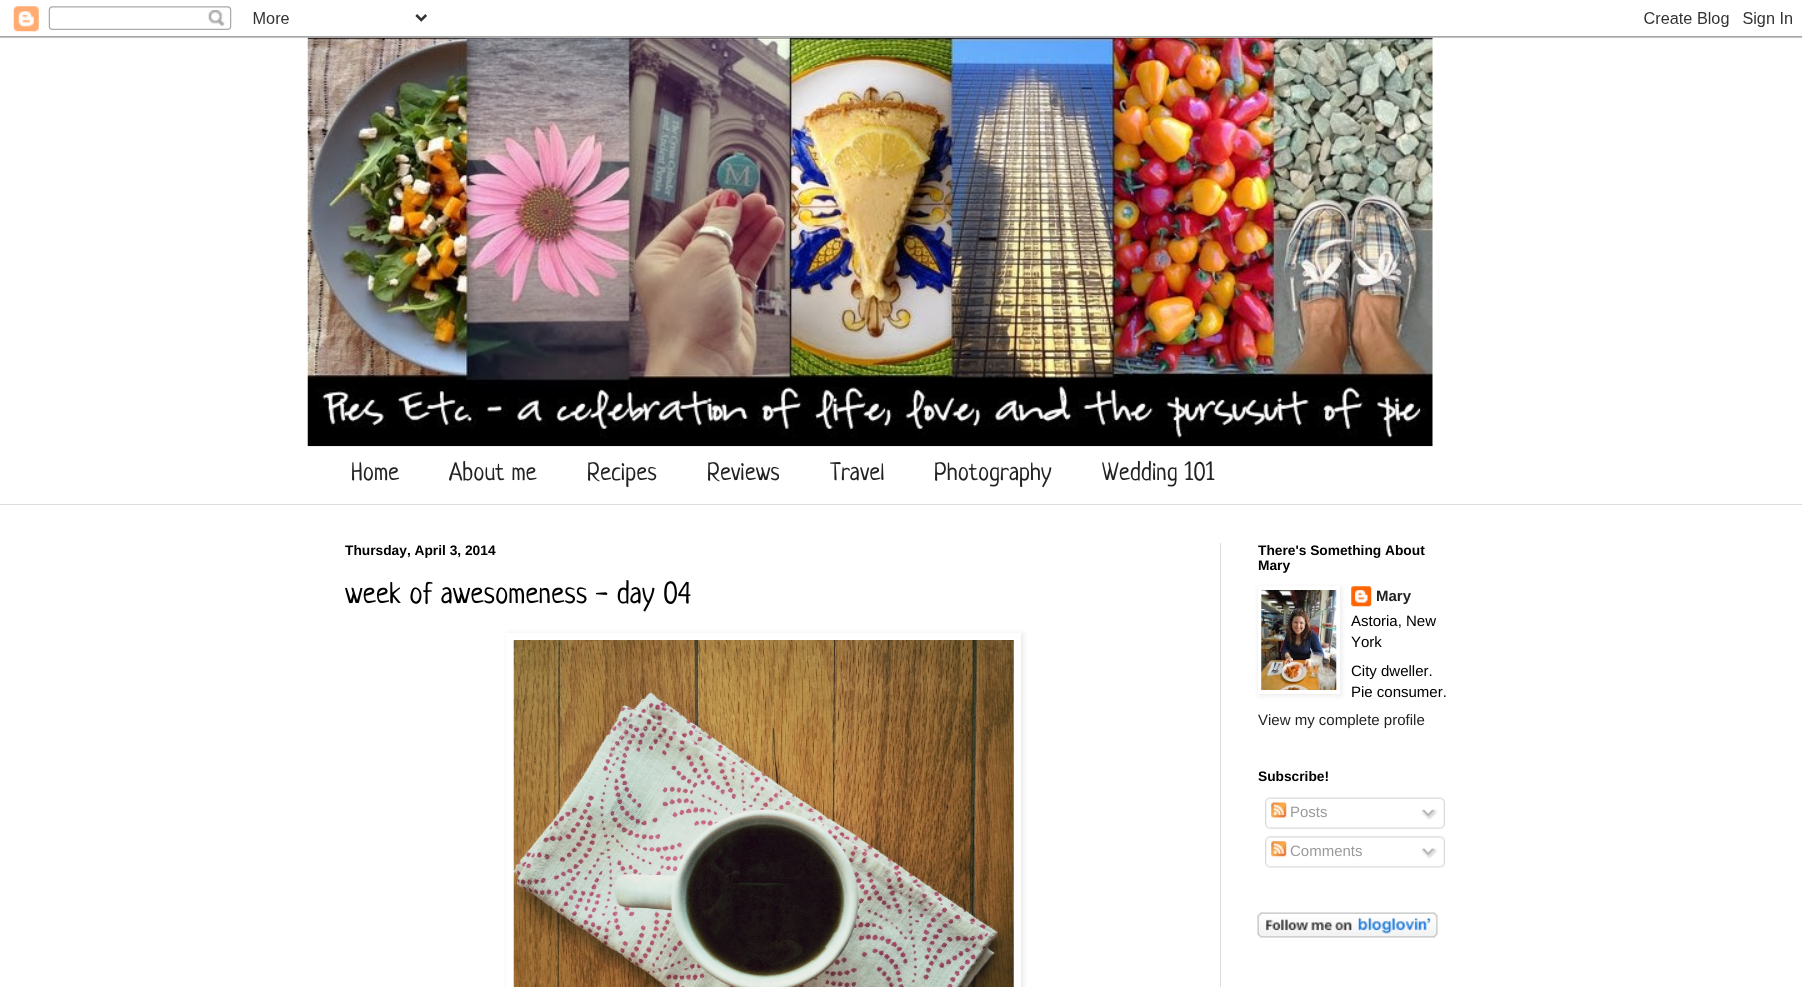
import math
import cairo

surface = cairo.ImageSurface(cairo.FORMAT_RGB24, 1802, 987)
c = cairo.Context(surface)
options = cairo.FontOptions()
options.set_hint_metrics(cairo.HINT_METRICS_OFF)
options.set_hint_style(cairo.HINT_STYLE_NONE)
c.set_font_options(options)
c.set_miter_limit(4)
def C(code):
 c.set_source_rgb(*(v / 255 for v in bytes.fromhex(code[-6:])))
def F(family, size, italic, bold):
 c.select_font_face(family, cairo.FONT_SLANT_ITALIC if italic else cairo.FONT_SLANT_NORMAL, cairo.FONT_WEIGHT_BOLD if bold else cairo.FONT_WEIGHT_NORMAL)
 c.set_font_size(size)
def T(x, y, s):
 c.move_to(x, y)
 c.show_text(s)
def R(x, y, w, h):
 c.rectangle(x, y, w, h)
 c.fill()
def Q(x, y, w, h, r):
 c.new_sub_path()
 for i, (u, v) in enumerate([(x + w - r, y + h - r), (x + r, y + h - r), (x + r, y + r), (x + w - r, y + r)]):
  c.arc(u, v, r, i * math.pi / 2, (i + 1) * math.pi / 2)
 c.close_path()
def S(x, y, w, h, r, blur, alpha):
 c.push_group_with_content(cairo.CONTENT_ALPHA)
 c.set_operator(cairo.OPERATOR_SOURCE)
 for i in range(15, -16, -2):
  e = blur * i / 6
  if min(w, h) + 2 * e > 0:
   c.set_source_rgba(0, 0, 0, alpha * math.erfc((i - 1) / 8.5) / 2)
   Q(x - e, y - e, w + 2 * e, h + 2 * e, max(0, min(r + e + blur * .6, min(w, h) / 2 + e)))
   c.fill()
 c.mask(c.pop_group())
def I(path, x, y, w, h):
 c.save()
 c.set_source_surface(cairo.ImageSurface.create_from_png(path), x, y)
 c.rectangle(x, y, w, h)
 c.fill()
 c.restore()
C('ffffff')
c.paint()
I('2.png',307,37,1126,410)
I('1.png',0,6,1802,32)
F('Neucha',25,0,0)
C('222222')
T(351,480,'Home')
T(449,480,'About me')
T(587,480,'Recipes')
T(707,480,'Reviews')
T(830,480,'Travel')
T(934,480,'Photography')
T(1102,480,'Wedding 101')
C('dddddd')
R(0,504,1802,1)
R(1220,543,1,444)
F('Liberation Sans',13.75,0,1)
C('000000')
T(345,555,'Thursday, April 3, 2014')
F('Neucha',30,0,0)
T(345,603,'week of awesomeness - day 04')
c.save()
c.set_fill_rule(cairo.FILL_RULE_EVEN_ODD)
c.new_path()
c.move_to(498,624)
c.line_to(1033,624)
c.line_to(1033,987)
c.line_to(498,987)
c.close_path()
c.move_to(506,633)
c.line_to(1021,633)
c.line_to(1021,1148)
c.line_to(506,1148)
c.close_path()
c.clip()
C('000000')
S(508,634,515,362,0,3,.1)
c.restore()
I('3.png',513,640,501,347)
F('Liberation Sans',13.75,0,1)
T(1258,555,'There\'s Something About')
T(1258,570,'Mary')
c.save()
c.set_fill_rule(cairo.FILL_RULE_EVEN_ODD)
c.new_path()
c.move_to(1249,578)
c.line_to(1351,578)
c.line_to(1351,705)
c.line_to(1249,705)
c.close_path()
c.move_to(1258,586)
c.line_to(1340,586)
c.line_to(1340,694)
c.line_to(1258,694)
c.close_path()
c.clip()
C('000000')
S(1259,588,82,107,0,3,.1)
c.restore()
I('4.png',1261,590,76,100)
I('5.png',1351,586,21,21)
F('Liberation Sans',15,0,1)
C('222222')
T(1376,601,'Mary')
F('Liberation Sans',15,0,0)
C('000000')
T(1351,626,'Astoria, New')
T(1351,647,'York')
T(1351,676,'City dweller.')
T(1351,697,'Pie consumer.')
C('222222')
T(1258,725,'View my complete profile')
F('Liberation Sans',13.75,0,1)
C('000000')
T(1258,781,'Subscribe!')
I('6.png',1265,797,180,28)
I('7.png',1271,802,16,16)
F('Liberation Sans',15,0,0)
C('999999')
T(1290,817,'Posts')
I('8.png',1421,809,17,11)
I('9.png',1265,825,180,4)
I('10.png',1265,836,180,28)
I('11.png',1271,841,16,16)
T(1290,856,'Comments')
I('12.png',1421,848,17,11)
I('13.png',1265,863,180,5)
I('14.png',1257,912,181,26)
surface.write_to_png('o.png')
